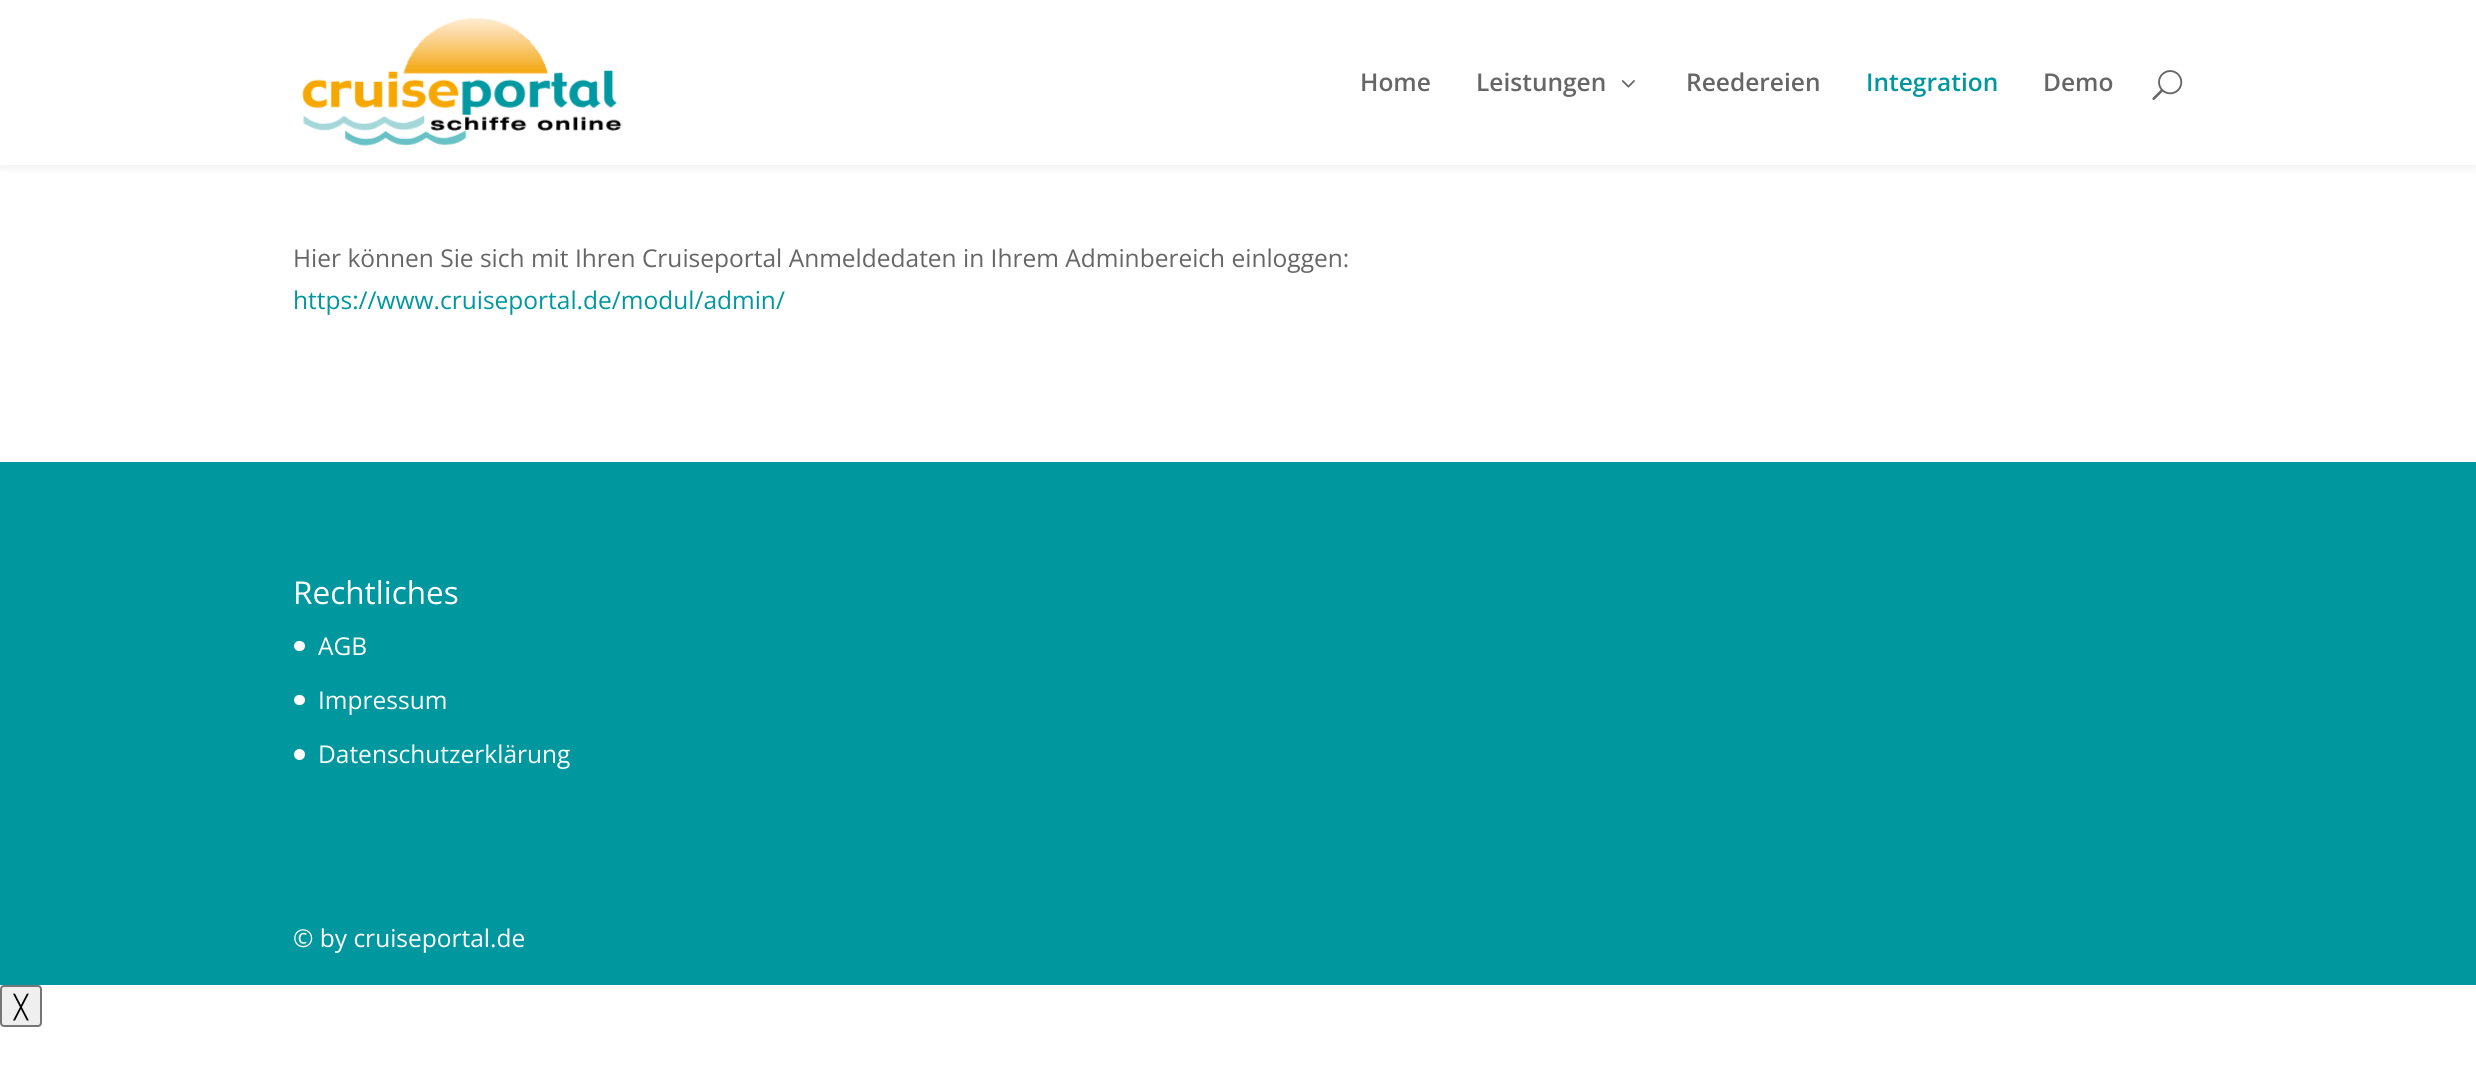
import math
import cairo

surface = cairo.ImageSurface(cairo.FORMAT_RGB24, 2476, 1069)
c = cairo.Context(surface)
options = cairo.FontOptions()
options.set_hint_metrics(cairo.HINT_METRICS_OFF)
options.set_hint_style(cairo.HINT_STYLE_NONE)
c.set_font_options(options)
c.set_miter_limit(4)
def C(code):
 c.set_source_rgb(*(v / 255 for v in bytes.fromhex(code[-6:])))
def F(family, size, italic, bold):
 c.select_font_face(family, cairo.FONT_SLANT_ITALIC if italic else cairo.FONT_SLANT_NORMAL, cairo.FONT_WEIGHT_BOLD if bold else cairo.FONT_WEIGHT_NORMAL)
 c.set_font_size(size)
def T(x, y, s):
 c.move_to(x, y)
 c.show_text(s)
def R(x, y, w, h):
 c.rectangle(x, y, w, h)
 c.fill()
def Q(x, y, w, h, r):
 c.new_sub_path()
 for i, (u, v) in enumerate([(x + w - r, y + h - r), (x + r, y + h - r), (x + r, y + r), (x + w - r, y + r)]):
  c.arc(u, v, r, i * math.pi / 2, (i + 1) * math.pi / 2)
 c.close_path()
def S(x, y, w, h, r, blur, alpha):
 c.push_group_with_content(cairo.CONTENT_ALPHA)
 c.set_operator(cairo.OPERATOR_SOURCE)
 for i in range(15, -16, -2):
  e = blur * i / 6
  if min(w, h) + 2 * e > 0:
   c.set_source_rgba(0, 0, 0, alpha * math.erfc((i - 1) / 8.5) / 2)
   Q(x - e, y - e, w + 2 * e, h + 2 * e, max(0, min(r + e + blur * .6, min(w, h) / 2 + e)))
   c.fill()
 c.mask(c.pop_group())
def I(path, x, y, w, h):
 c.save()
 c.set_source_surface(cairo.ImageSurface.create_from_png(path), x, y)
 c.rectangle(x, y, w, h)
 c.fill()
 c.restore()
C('ffffff')
c.paint()
C('000000')
S(0,0,2476,165,0,6,.1)
C('ffffff')
R(0,0,2476,165)
I('1.png',302,17,320,129)
F('Open Sans SemiBold',24.5,0,0)
C('666666')
T(1360,91,'Home')
T(1476,91,'Leistungen')
I('2.png',1621,80,14,8)
T(1686,91,'Reedereien')
C('00979e')
T(1866,91,'Integration')
C('666666')
T(2043,91,'Demo')
I('3.png',2152,70,31,30)
F('Open Sans',24.5,0,0)
T(293,267,'Hier können Sie sich mit Ihren Cruiseportal Anmeldedaten in Ihrem Adminbereich einloggen:')
C('00979e')
T(293,309,'https://www.cruiseportal.de/modul/admin/')
R(0,462,2476,523)
F('Open Sans',31.5,0,0)
C('ffffff')
T(293,604,'Rechtliches')
Q(294,641,11,10,5)
c.fill()
F('Open Sans',24.5,0,0)
T(318,655,'AGB')
Q(294,695,11,10,5)
c.fill()
T(318,709,'Impressum')
c.new_path()
c.arc(299.5,754.5,5.5,0,2 * math.pi)
c.fill()
T(318,763,'Datenschutzerklärung')
T(293,947,'© by cruiseportal.de')
C('efefef')
Q(1,986,40,40,3)
c.fill_preserve()
C('767676')
c.stroke()
F('DejaVu Sans',23,0,0)
C('000000')
T(14,1015,'╳')
surface.write_to_png('o.png')
